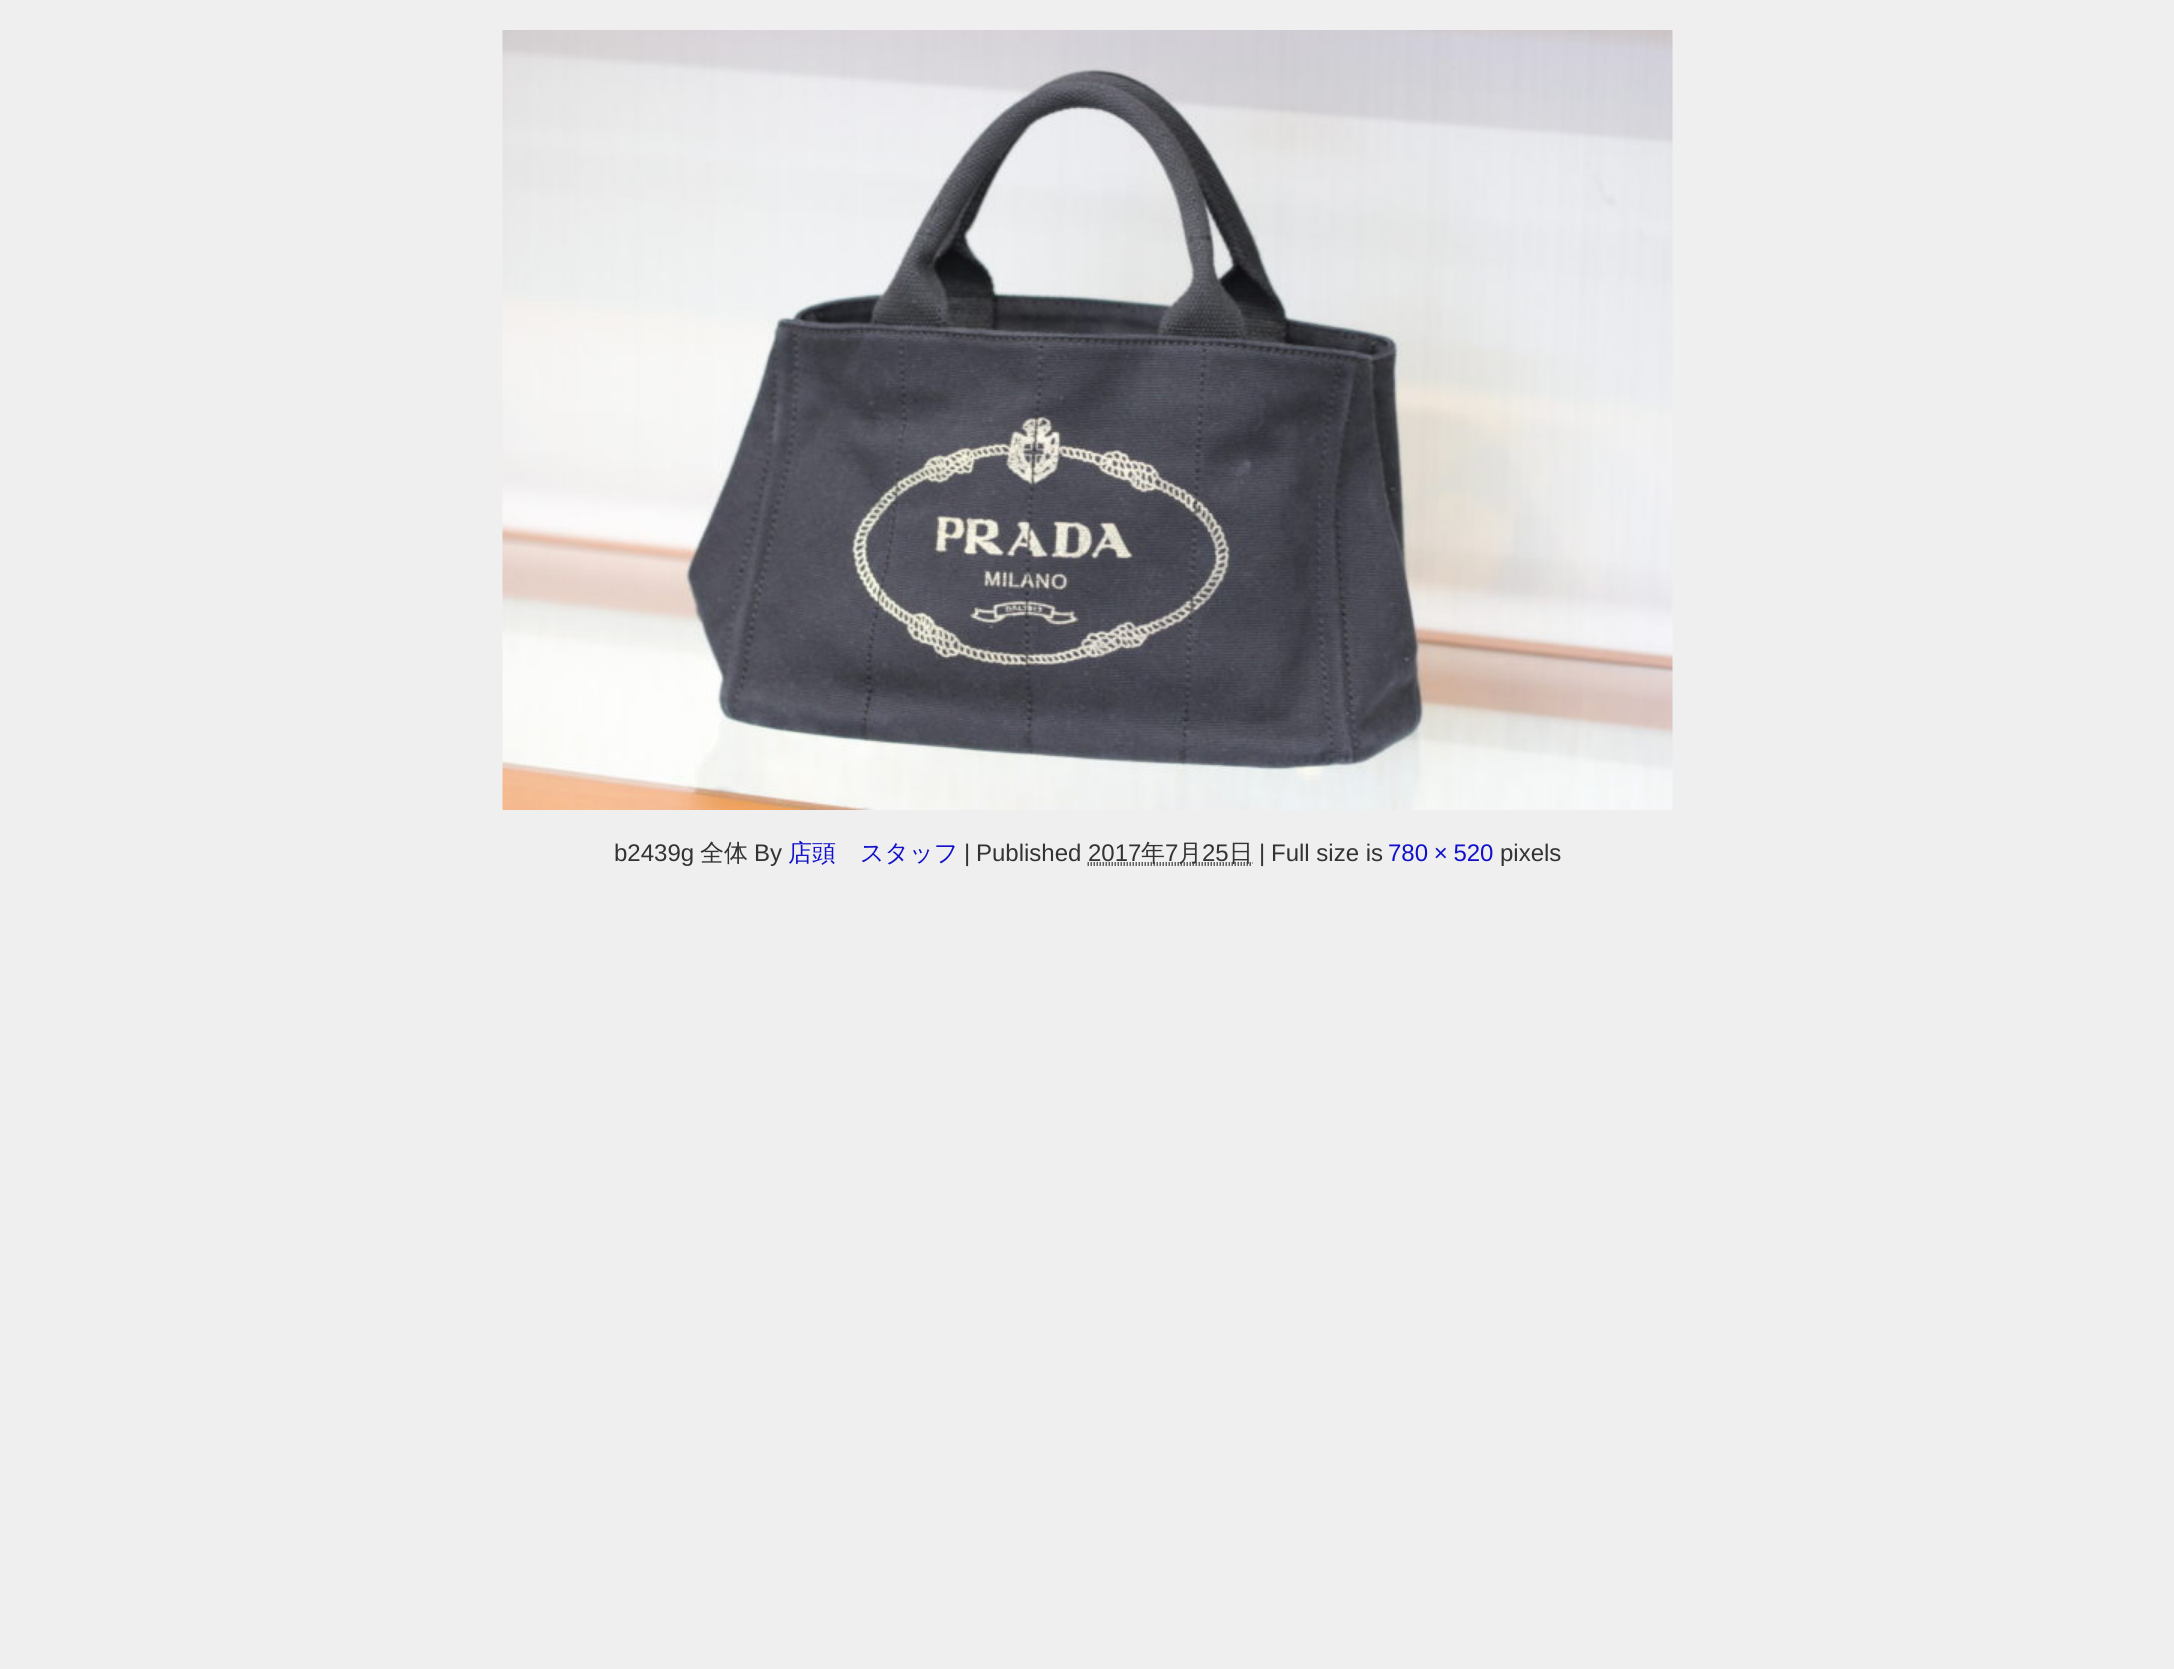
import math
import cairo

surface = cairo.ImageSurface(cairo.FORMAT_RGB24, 2174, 1669)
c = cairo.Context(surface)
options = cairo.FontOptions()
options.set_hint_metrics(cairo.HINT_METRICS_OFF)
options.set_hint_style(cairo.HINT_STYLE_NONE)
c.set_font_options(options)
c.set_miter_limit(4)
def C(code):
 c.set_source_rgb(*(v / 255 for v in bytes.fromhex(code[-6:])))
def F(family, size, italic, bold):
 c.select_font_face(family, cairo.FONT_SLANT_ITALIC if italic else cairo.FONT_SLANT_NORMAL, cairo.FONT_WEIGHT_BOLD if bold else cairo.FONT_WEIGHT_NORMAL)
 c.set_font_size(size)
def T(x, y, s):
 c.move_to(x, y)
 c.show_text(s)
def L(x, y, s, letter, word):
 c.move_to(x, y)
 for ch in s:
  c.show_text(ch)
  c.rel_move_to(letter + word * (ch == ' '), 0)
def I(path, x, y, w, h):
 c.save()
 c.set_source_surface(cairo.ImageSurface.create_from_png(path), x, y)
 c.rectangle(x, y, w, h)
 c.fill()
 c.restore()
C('efefef')
c.paint()
I('1.png',502,30,1171,780)
F('Liberation Sans',24,0,0)
C('333333')
T(614,861,'b2439g')
F('WenQuanYi Zen Hei Medium',24,0,0)
T(700,861,'全体')
F('Liberation Sans',24,0,0)
T(754,861,'By')
F('WenQuanYi Zen Hei Medium',24,0,0)
C('1111cc')
T(788,861,'店頭　スタッフ')
F('Liberation Sans',24,0,0)
C('333333')
T(964,861,'|')
T(976,861,'Published')
T(1088,861,'2017')
c.new_path()
c.move_to(1087.5,863)
c.line_to(1253,863)
c.set_line_width(1.5)
c.set_dash([1.5,1.5])
c.stroke()
F('WenQuanYi Zen Hei Medium',24,0,0)
T(1141,861,'年')
F('Liberation Sans',24,0,0)
T(1165,861,'7')
c.new_path()
c.move_to(1087.5,865)
c.line_to(1252.5,865)
c.stroke()
F('WenQuanYi Zen Hei Medium',24,0,0)
T(1178,861,'月')
F('Liberation Sans',24,0,0)
T(1202,861,'25')
F('WenQuanYi Zen Hei Medium',24,0,0)
T(1229,861,'日')
F('Liberation Sans',24,0,0)
T(1259,861,'|')
T(1271,861,'Full size is')
C('1111cc')
L(1388,861,'780 × 520',0,-1)
C('333333')
T(1500,861,'pixels')
surface.write_to_png('o.png')
